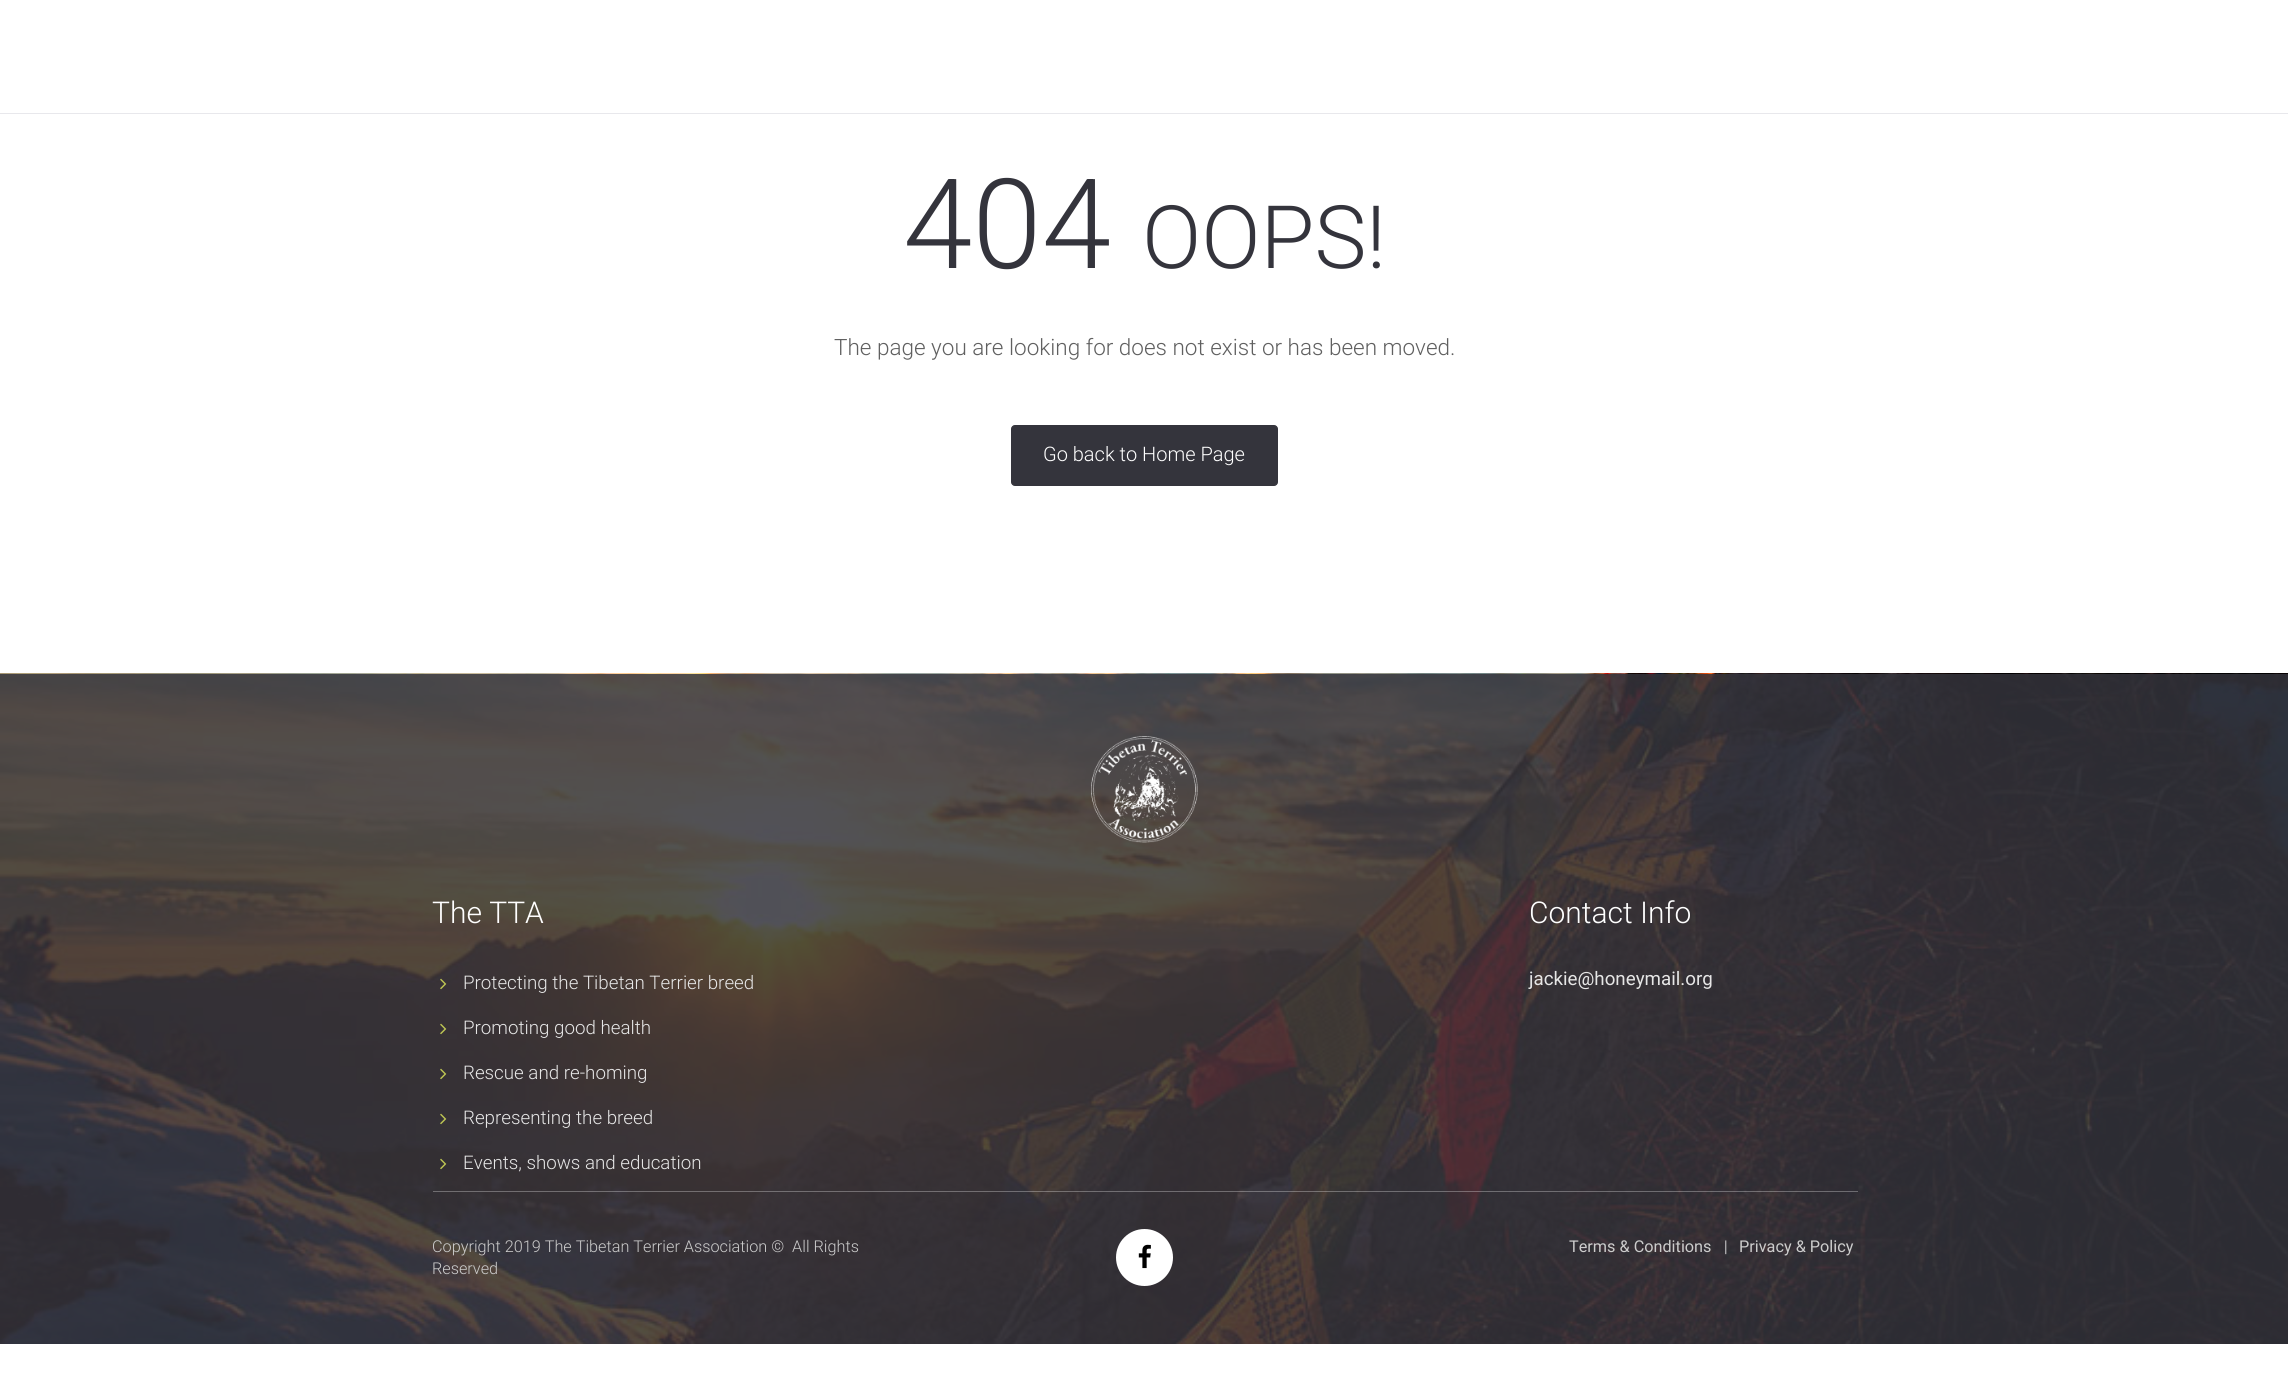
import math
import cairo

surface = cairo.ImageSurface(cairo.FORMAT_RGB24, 2288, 1391)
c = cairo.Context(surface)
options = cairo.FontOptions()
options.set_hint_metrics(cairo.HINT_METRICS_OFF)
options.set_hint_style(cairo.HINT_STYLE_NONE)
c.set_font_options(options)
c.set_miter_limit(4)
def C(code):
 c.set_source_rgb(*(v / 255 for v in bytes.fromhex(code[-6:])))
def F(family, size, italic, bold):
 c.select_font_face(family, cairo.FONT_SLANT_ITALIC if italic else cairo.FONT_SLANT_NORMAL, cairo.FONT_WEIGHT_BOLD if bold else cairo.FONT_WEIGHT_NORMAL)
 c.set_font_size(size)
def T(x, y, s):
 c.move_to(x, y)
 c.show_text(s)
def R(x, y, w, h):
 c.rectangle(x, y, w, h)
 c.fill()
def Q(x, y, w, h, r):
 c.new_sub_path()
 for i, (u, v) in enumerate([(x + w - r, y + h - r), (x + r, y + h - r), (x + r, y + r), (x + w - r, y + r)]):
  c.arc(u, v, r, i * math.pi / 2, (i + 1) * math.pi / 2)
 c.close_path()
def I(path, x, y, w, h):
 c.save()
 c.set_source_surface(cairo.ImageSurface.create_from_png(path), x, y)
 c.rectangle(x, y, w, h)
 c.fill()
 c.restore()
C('ffffff')
c.paint()
C('e8e8ec')
R(0,113,2288,1)
F('Roboto Light',125,0,0)
C('34343c')
T(903,268,'404')
F('Roboto Light',87.5,0,0)
T(1142,268,'OOPS!')
F('Roboto Light',22.5,0,0)
C('606060')
T(834,355,'The page you are looking for does not exist or has been moved.')
C('34343c')
Q(1011.5,425.5,266,60,3.5)
c.fill_preserve()
c.set_line_width(1)
c.stroke()
F('Roboto Light',20,0,0)
C('ffffff')
T(1043,461,'Go back to Home Page')
I('1.png',0,673,2288,671)
I('2.png',1091,736,107,107)
F('Roboto Light',30,0,0)
T(432,923,'The TTA')
I('3.png',440,978,7,12)
F('Roboto Light',18.75,0,0)
C('e6e6e6')
T(463,989,'Protecting the Tibetan Terrier breed')
I('4.png',440,1023,7,12)
T(463,1034,'Promoting good health')
I('5.png',440,1068,7,12)
T(463,1079,'Rescue and re-homing')
I('6.png',440,1113,7,12)
T(463,1124,'Representing the breed')
I('7.png',440,1158,7,12)
T(463,1169,'Events, shows and education')
F('Roboto Light',30,0,0)
C('ffffff')
T(1529,923,'Contact Info')
F('Roboto',18.75,0,0)
C('e6e6e6')
T(1529,985,'jackie@honeymail.org')
c.set_source_rgba(1,1,1,0.3)
R(433,1191,1425,1)
F('Roboto Light',16.25,0,0)
C('cccccc')
T(432,1252,'Copyright 2019 The Tibetan Terrier Association ©  All Rights')
T(432,1274,'Reserved')
C('ffffff')
c.new_path()
c.arc(1144.5,1257.5,28.5,0,2 * math.pi)
c.fill()
I('8.png',1138,1244,13,25)
F('Roboto',16.25,0,0)
C('cccccc')
T(1569,1252,'Terms & Conditions')
F('Roboto Light',16.25,0,0)
C('ffffff')
T(1724,1252,'|')
F('Roboto',16.25,0,0)
C('cccccc')
T(1739,1252,'Privacy & Policy')
surface.write_to_png('o.png')
